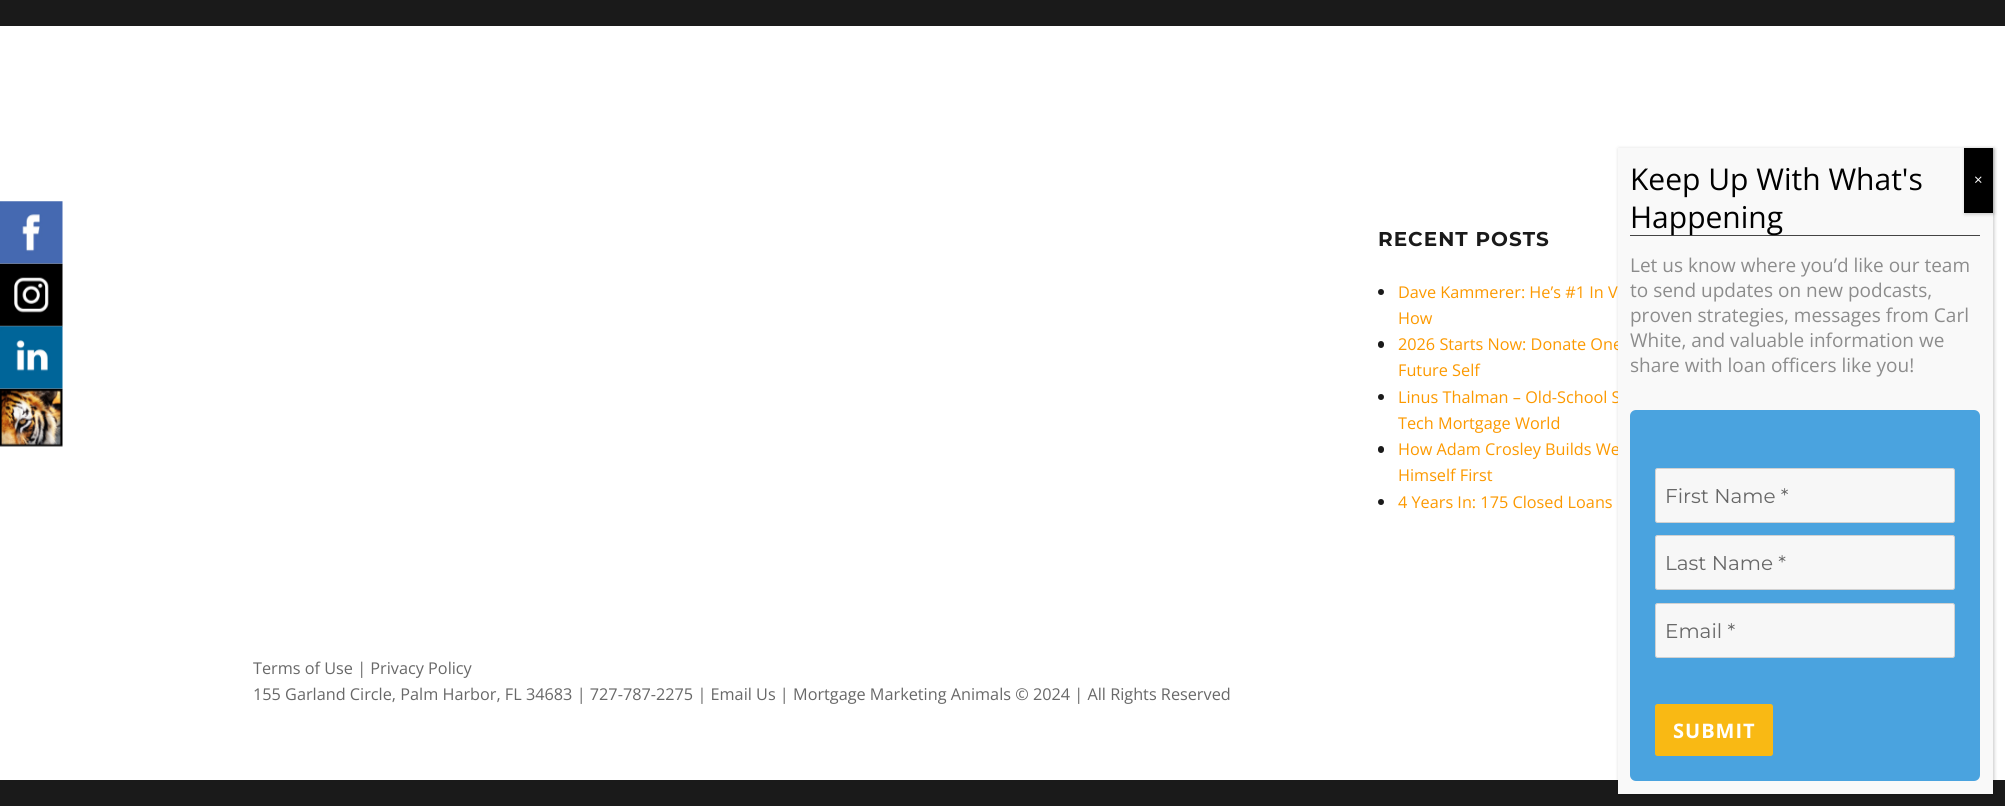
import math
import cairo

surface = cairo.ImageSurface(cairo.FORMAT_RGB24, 2005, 806)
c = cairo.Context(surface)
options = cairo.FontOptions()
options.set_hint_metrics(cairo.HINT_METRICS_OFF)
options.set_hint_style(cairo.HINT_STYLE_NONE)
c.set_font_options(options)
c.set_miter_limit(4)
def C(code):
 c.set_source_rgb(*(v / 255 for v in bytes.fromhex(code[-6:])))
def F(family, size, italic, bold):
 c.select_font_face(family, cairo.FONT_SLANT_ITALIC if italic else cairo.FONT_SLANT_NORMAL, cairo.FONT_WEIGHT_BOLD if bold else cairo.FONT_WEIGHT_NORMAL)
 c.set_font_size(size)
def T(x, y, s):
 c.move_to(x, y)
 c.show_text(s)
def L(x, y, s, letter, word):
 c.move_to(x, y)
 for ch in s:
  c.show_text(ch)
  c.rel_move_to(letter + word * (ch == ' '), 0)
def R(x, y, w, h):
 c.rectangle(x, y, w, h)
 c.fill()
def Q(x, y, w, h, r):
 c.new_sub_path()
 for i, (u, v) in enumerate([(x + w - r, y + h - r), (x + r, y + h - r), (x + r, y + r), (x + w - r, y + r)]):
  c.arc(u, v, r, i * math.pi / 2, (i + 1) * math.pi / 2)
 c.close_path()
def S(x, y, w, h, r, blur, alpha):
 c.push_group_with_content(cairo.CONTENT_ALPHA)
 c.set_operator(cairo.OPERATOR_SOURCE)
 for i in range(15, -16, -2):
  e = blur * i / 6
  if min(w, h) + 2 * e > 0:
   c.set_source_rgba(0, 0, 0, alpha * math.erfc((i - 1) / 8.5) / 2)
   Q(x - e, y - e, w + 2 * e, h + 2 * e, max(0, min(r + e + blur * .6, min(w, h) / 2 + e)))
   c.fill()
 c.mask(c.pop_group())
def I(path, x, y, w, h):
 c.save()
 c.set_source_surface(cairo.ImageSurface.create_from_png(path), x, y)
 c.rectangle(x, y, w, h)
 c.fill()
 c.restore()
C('ffffff')
c.paint()
C('1a1a1a')
R(0,0,2005,26)
I('1.png',0,201,63,64)
I('2.png',0,263,63,64)
I('3.png',0,326,63,64)
I('4.png',0,388,63,59)
F('Montserrat Thin',20,0,0)
L(1378,246,'RECENT POSTS',1,0)
c.new_path()
c.arc(1381,292,3,0,2 * math.pi)
c.fill()
F('Open Sans',16.25,0,0)
C('fc9900')
T(1398,298,'Dave Kammerer: He’s #1 In V')
T(1398,324,'How')
C('1a1a1a')
Q(1378,341,6,7,3)
c.fill()
C('fc9900')
T(1398,350,'2026 Starts Now: Donate One')
T(1398,376,'Future Self')
C('1a1a1a')
c.new_path()
c.arc(1381,397,3,0,2 * math.pi)
c.fill()
C('fc9900')
T(1398,403,'Linus Thalman – Old-School S')
T(1398,429,'Tech Mortgage World')
C('1a1a1a')
Q(1378,446,6,7,3)
c.fill()
C('fc9900')
T(1398,455,'How Adam Crosley Builds We')
T(1398,481,'Himself First')
C('1a1a1a')
c.new_path()
c.arc(1381,502,3,0,2 * math.pi)
c.fill()
C('fc9900')
T(1398,508,'4 Years In: 175 Closed Loans')
C('686868')
T(253,674,'Terms of Use | Privacy Policy')
T(253,700,'155 Garland Circle, Palm Harbor, FL 34683 | 727-787-2275 | Email Us | Mortgage Marketing Animals © 2024 | All Rights Reserved')
C('1a1a1a')
R(0,780,2005,26)
C('020202')
S(1619,149,375,646,0,2,.23)
C('f9f9f9')
R(1618,148,375,646)
C('444444')
R(1630,235,350,1)
F('Open Sans',30,0,0)
C('000000')
T(1630,190,'Keep Up With What\'s')
T(1630,228,'Happening')
C('020202')
S(1965,149,29,65,0,2,.23)
C('000000')
R(1964,148,29,65)
F('Open Sans',15,0,0)
C('ffffff')
T(1974,185,'×')
F('Open Sans',19,0,0)
C('8c8c8c')
T(1630,272,'Let us know where you’d like our team')
T(1630,297,'to send updates on new podcasts,')
T(1630,322,'proven strategies, messages from Carl')
T(1630,347,'White, and valuable information we')
T(1630,372,'share with loan officers like you!')
C('4aa3df')
Q(1630,410,350,371,6)
c.fill()
C('f7f7f7')
Q(1655.5,468.5,299,54,2)
c.fill_preserve()
C('d1d1d1')
c.set_line_width(1)
c.stroke()
F('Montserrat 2 Thin',20,0,0)
C('686868')
T(1665,503,'First Name *')
C('f7f7f7')
Q(1655.5,535.5,299,54,2)
c.fill_preserve()
C('d1d1d1')
c.stroke()
C('686868')
T(1665,570,'Last Name *')
C('f7f7f7')
Q(1655.5,603.5,299,54,2)
c.fill_preserve()
C('d1d1d1')
c.stroke()
C('686868')
T(1665,638,'Email *')
C('f9b914')
Q(1655,704,118,52,2.5)
c.fill()
F('Open Sans',20,0,1)
C('ffffff')
L(1673,738,'SUBMIT',1,0)
surface.write_to_png('o.png')
